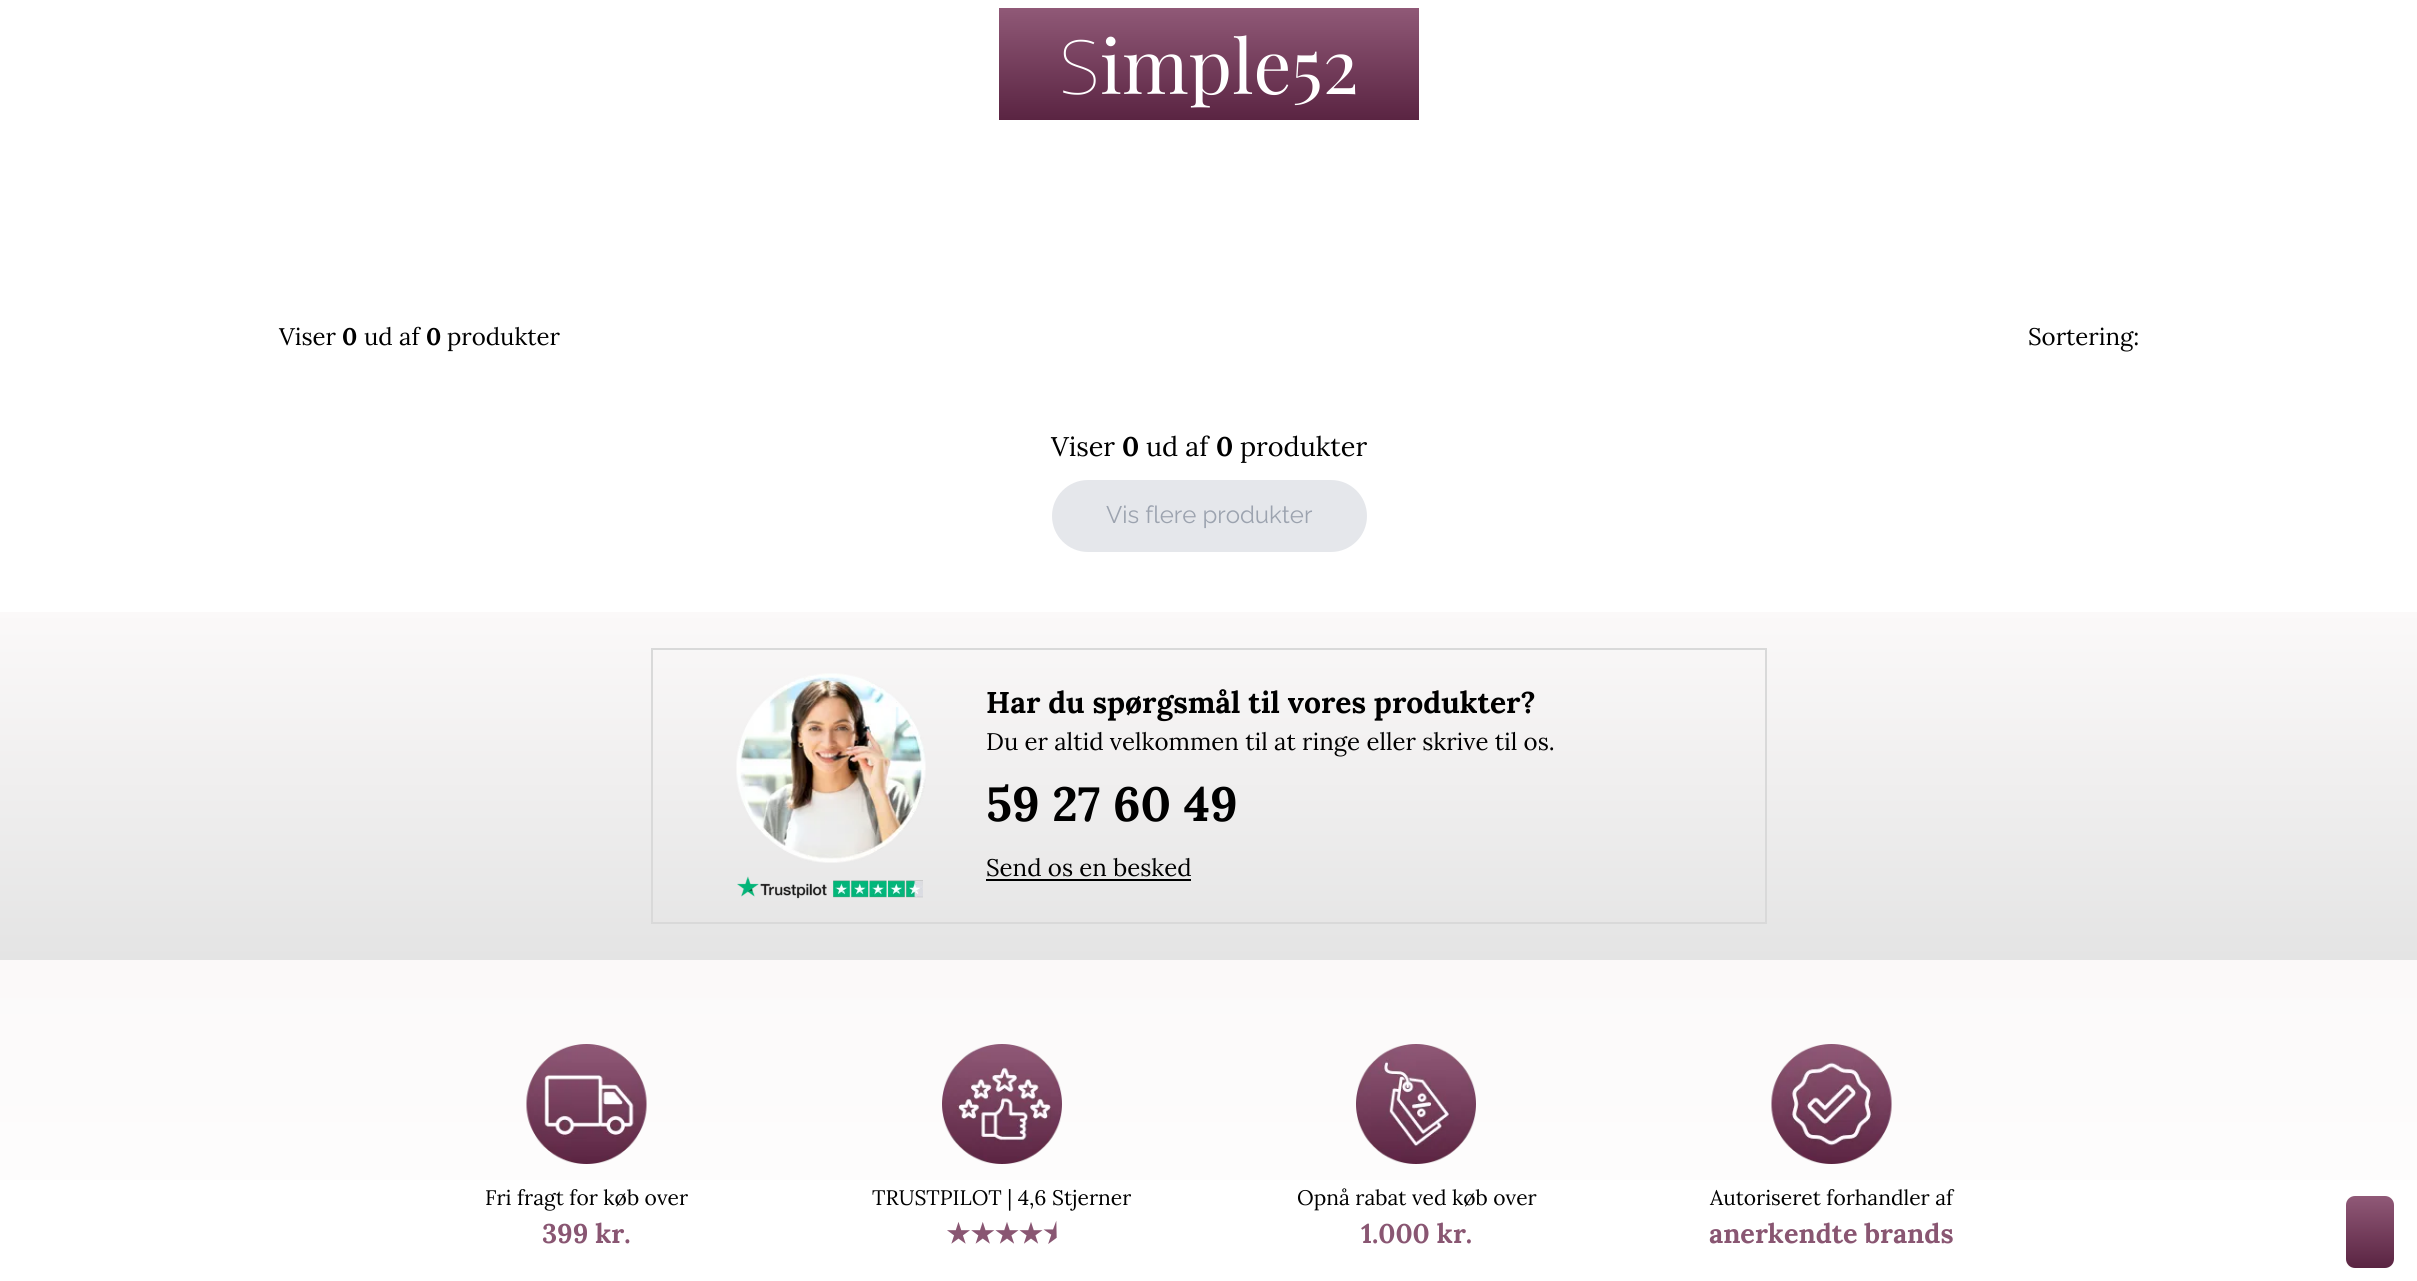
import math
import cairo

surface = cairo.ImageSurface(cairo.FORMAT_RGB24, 2417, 1281)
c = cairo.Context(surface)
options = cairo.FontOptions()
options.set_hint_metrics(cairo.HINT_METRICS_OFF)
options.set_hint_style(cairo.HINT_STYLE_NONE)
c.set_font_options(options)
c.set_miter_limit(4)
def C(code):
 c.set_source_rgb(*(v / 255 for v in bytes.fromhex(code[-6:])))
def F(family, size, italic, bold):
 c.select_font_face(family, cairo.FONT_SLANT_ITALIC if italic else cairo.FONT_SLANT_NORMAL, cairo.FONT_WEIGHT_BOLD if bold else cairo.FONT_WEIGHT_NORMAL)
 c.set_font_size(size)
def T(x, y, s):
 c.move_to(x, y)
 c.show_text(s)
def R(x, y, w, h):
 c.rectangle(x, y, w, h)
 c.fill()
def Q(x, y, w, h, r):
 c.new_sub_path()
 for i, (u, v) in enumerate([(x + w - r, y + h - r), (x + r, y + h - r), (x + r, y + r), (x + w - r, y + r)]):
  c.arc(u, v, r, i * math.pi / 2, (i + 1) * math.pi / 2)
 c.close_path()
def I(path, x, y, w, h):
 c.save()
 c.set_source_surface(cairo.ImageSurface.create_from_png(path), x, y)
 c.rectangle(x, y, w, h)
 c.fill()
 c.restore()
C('ffffff')
c.paint()
gradient = cairo.LinearGradient(1209,7.5,1209,120)
gradient.add_color_stop_rgba(0,0.565,0.349,0.467,1)
gradient.add_color_stop_rgba(1,0.353,0.141,0.259,1)
c.set_source(gradient)
R(999,8,420,112)
F('Noto Sans Thin',75,0,0)
C('ffffff')
T(1059,94,'S')
F('Playfair Display',75,0,0)
T(1100,94,'imple52')
F('Lora',24,0,0)
C('000000')
T(279,345,'Viser')
F('Lora',24,0,1)
T(342,345,'0')
F('Lora',24,0,0)
T(364,345,'ud af')
F('Lora',24,0,1)
T(426,345,'0')
F('Lora',24,0,0)
T(447,345,'produkter')
T(2028,345,'Sortering:')
F('Lora',27,0,0)
T(1051,456,'Viser')
F('Lora',27,0,1)
T(1122,456,'0')
F('Lora',27,0,0)
T(1146,456,'ud af')
F('Lora',27,0,1)
T(1216,456,'0')
F('Lora',27,0,0)
T(1240,456,'produkter')
C('e5e7eb')
Q(1052,480,315,72,36)
c.fill()
F('Raleway',24,0,0)
C('9ca3af')
T(1106,523,'Vis flere produkter')
gradient = cairo.LinearGradient(1209,612,1209,960)
gradient.add_color_stop_rgba(0,0.984,0.976,0.976,1)
gradient.add_color_stop_rgba(1,0.894,0.894,0.894,1)
c.set_source(gradient)
R(0,612,2417,348)
c.rectangle(652,649,1114,274)
C('d9d9d9')
c.stroke()
I('1.png',736,673,190,190)
I('2.png',737,876,186,23)
F('Lora',30,0,1)
C('000000')
T(986,713,'Har du spørgsmål til vores produkter?')
F('Lora',24,0,0)
T(986,750,'Du er altid velkommen til at ringe eller skrive til os.')
F('Lora',48,0,1)
T(986,821,'59 27 60 49')
F('Lora',24,0,0)
T(986,876,'Send os en besked')
R(986,879,205,2)
gradient = cairo.LinearGradient(1209,960,1209,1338)
gradient.add_color_stop_rgba(0,0.984,0.976,0.976,1)
gradient.add_color_stop_rgba(1,1,1,1,1)
c.set_source(gradient)
R(0,960,2417,220)
I('3.png',526,1044,121,120)
F('Lora',21,0,0)
C('000000')
T(485,1205,'Fri fragt for køb over')
F('Lora',27,0,1)
C('895672')
T(542,1243,'399 kr.')
I('4.png',942,1044,120,120)
F('Lora',21,0,0)
C('000000')
T(872,1205,'TRUSTPILOT | 4,6 Stjerner')
F('DejaVu Sans',27,0,1)
C('895672')
T(946,1243,'★★★★')
F('Noto Sans Symbols 2',27,0,1)
T(1043,1243,'⯨')
I('5.png',1356,1044,120,120)
F('Lora',21,0,0)
C('000000')
T(1297,1205,'Opnå rabat ved køb over')
F('Lora',27,0,1)
C('895672')
T(1361,1243,'1.000 kr.')
I('6.png',1771,1044,121,120)
F('Lora',21,0,0)
C('000000')
T(1710,1205,'Autoriseret forhandler af')
F('Lora',27,0,1)
C('895672')
T(1709,1243,'anerkendte brands')
gradient = cairo.LinearGradient(2370,1196,2370,1268)
gradient.add_color_stop_rgba(0,0.565,0.349,0.467,1)
gradient.add_color_stop_rgba(1,0.353,0.141,0.259,1)
c.set_source(gradient)
Q(2346,1196,48,72,9)
c.fill()
surface.write_to_png('o.png')
